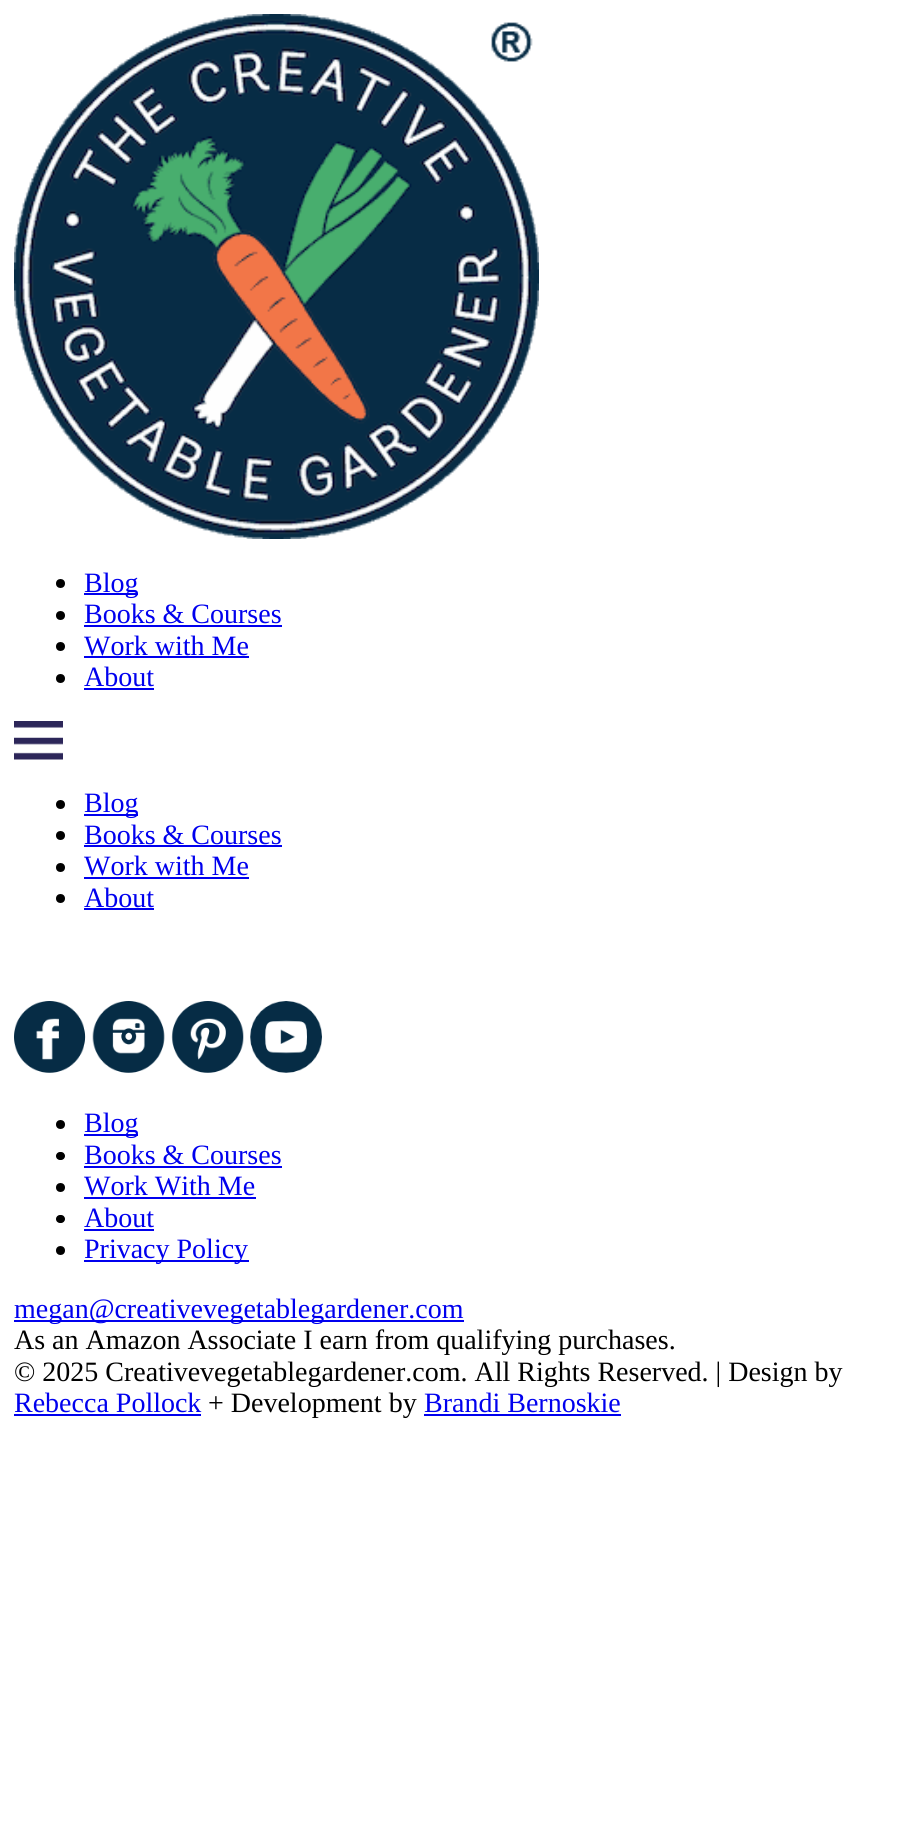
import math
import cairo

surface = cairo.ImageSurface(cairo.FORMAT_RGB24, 909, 1845)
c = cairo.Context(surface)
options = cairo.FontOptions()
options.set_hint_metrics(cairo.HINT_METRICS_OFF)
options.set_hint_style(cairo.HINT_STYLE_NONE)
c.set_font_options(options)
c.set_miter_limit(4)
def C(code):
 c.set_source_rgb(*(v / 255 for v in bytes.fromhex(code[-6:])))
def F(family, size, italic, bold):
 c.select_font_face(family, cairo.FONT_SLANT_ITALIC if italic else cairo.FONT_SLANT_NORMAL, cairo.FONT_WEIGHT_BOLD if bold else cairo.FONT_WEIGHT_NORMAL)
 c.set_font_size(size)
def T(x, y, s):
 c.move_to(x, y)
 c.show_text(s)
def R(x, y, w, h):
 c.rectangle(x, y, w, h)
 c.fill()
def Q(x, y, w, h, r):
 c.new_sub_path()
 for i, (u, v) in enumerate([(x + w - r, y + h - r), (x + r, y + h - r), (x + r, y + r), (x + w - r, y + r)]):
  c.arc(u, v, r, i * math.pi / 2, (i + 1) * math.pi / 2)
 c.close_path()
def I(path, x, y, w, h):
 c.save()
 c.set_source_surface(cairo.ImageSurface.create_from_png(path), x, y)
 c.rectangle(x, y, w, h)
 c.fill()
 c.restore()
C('ffffff')
c.paint()
I('1.png',14,14,525,525)
C('000000')
c.arc(60.5,583.5,4.5,0,2 * math.pi)
c.fill()
C('0000ee')
R(84,593,54,2)
F('Liberation Serif',28,0,0)
T(84,592,'Blog')
C('000000')
c.new_path()
c.arc(60.5,615.5,4.5,0,2 * math.pi)
c.fill()
C('0000ee')
T(84,623,'Books & Courses')
R(84,625,198,2)
C('000000')
c.new_path()
c.arc(60.5,646.5,4.5,0,2 * math.pi)
c.fill()
C('0000ee')
T(84,655,'Work with Me')
R(84,656,165,2)
C('000000')
c.new_path()
c.arc(60.5,678.5,4.5,0,2 * math.pi)
c.fill()
C('0000ee')
T(84,686,'About')
R(84,688,70,2)
I('2.png',14,721,49,39)
C('000000')
c.arc(60.5,804.5,4.5,0,2 * math.pi)
c.fill()
C('0000ee')
R(84,814,54,2)
T(84,812,'Blog')
C('000000')
c.new_path()
c.arc(60.5,835.5,4.5,0,2 * math.pi)
c.fill()
C('0000ee')
T(84,844,'Books & Courses')
R(84,845,198,2)
C('000000')
c.new_path()
c.arc(60.5,867.5,4.5,0,2 * math.pi)
c.fill()
C('0000ee')
T(84,875,'Work with Me')
R(84,877,165,2)
C('000000')
c.new_path()
c.arc(60.5,898.5,4.5,0,2 * math.pi)
c.fill()
C('0000ee')
T(84,907,'About')
R(84,908,70,2)
I('3.png',14,1001,72,72)
I('4.png',92,1001,73,72)
I('5.png',171,1001,73,72)
I('6.png',250,1001,72,72)
C('000000')
c.arc(60.5,1124.5,4.5,0,2 * math.pi)
c.fill()
C('0000ee')
R(84,1134,54,2)
T(84,1132,'Blog')
C('000000')
Q(56,1152,9,8,4)
c.fill()
C('0000ee')
T(84,1164,'Books & Courses')
R(84,1166,198,2)
C('000000')
c.new_path()
c.arc(60.5,1187.5,4.5,0,2 * math.pi)
c.fill()
C('0000ee')
T(84,1195,'Work With Me')
R(84,1197,172,2)
C('000000')
Q(56,1215,9,8,4)
c.fill()
C('0000ee')
T(84,1227,'About')
R(84,1229,70,2)
C('000000')
c.new_path()
c.arc(60.5,1250.5,4.5,0,2 * math.pi)
c.fill()
C('0000ee')
R(84,1260,165,2)
T(84,1258,'Privacy Policy')
R(14,1320,450,2)
T(14,1318,'megan@creativevegetablegardener.com')
C('000000')
T(14,1349,'As an Amazon Associate I earn from qualifying purchases.')
T(14,1381,'© 2025 Creativevegetablegardener.com. All Rights Reserved. | Design by')
C('0000ee')
T(14,1412,'Rebecca Pollock')
R(14,1414,187,2)
C('000000')
T(208,1412,'+ Development by')
C('0000ee')
T(424,1412,'Brandi Bernoskie')
R(424,1414,197,2)
surface.write_to_png('o.png')
